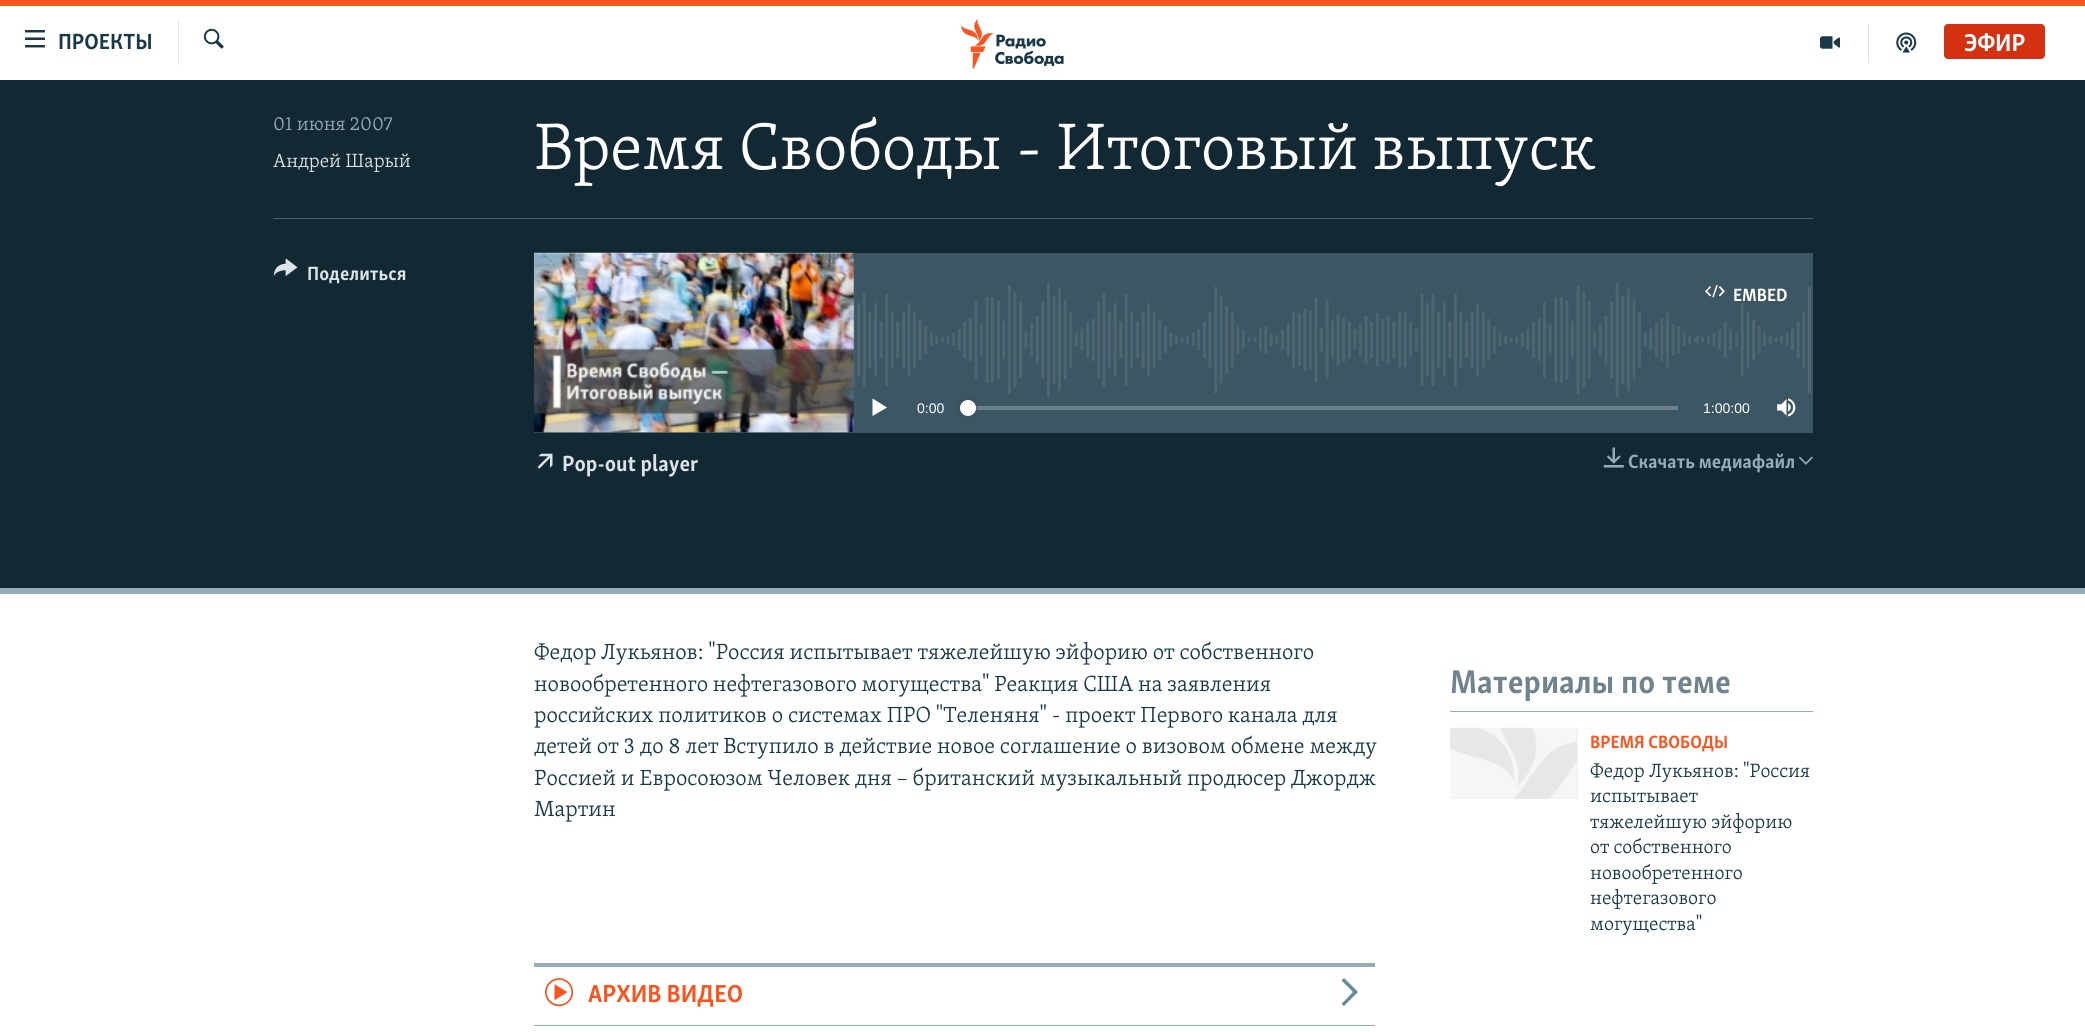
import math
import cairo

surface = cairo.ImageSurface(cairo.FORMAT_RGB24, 2085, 1032)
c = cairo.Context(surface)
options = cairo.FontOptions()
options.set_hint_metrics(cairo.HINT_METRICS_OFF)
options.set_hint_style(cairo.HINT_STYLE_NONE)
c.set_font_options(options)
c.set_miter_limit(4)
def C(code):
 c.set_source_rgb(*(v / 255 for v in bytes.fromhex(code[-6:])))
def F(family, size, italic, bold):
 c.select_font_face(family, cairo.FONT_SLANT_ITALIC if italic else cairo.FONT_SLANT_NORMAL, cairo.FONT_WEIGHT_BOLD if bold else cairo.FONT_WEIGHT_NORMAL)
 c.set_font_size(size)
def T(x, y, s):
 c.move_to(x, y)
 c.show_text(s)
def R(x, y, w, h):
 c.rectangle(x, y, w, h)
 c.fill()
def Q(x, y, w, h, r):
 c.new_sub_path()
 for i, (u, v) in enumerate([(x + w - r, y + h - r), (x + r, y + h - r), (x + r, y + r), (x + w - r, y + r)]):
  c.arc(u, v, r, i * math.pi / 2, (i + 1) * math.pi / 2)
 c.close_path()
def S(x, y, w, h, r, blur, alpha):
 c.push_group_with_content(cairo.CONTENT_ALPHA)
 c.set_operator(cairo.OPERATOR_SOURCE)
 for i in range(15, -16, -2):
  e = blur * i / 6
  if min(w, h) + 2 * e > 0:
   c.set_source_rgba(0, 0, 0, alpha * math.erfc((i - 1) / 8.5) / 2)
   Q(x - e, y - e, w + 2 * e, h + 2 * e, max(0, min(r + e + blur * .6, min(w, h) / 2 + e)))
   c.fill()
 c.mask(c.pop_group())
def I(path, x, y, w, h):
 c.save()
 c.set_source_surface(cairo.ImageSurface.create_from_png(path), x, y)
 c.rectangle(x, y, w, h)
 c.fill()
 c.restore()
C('ffffff')
c.paint()
C('fa5420')
R(0,0,2085,6)
I('1.png',25,30,20,18)
F('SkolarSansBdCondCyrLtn',22.5,0,1)
C('1a3948')
T(58,49,'ПРОЕКТЫ')
C('dce4e8')
R(178,21,1,44)
I('2.png',203,28,21,21)
I('3.png',961,19,103,50)
R(1868,24,1,39)
I('4.png',1820,36,20,13)
I('5.png',1896,32,21,21)
C('d33111')
Q(1944,24,101,35,4)
c.fill()
F('SkolarSansBdCondCyrLtn',25,0,1)
C('ffffff')
T(1964,51,'ЭФИР')
C('122832')
R(0,80,2085,508)
C('95adb9')
R(0,588,2085,6)
F('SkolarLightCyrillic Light',19.75,0,0)
T(273,130,'01 июня 2007')
C('dce4e8')
T(273,167,'Андрей Шарый')
F('SkolarLightCyrillic Light',67.5,0,0)
C('ffffff')
T(534,169,'Время Свободы - Итоговый выпуск')
C('48616d')
R(273,218,1540,1)
I('6.png',273,258,25,18)
F('SkolarSansBdCondCyrLtn',19.75,0,1)
C('dce4e8')
T(307,280,'Поделиться')
C('3c5763')
R(534,253,1279,180)
I('7.png',533,283,1278,114)
I('8.png',533,252,321,181)
I('9.png',1705,285,20,13)
F('SkolarSansBdCondCyrLtn',18.25,0,1)
C('ffffff')
T(1733,301,'EMBED')
c.new_path()
c.move_to(872.5,416)
c.line_to(887,407.5)
c.line_to(872.5,398.5)
c.close_path()
c.fill()
F('Liberation Sans',14,0,0)
T(917,413,'0:00')
C('6d818a')
R(968,406,710,4)
C('414144')
S(960,400,16,16,8,2,1)
C('ffffff')
c.arc(968,408,8,0,2 * math.pi)
c.fill()
T(1703,413,'1:00:00')
I('10.png',1777,398,19,19)
I('11.png',537,453,16,16)
F('SkolarSansBdCondCyrLtn',22.5,0,1)
C('dce4e8')
T(562,471,'Pop-out player')
I('12.png',1603,447,21,21)
F('SkolarSansBdCondCyrLtn',19.75,0,1)
C('95adb9')
T(1628,468,'Скачать медиафайл')
I('13.png',1798,456,15,9)
F('SkolarLightCyrillic Light',22.5,0,0)
C('1a3948')
T(534,659,'Федор Лукьянов: "Россия испытывает тяжелейшую эйфорию от собственного')
T(534,691,'новообретенного нефтегазового могущества" Реакция США на заявления')
T(534,722,'российских политиков о системах ПРО "Теленяня" - проект Первого канала для')
T(534,753,'детей от 3 до 8 лет Вступило в действие новое соглашение о визовом обмене между')
T(534,785,'Россией и Евросоюзом Человек дня – британский музыкальный продюсер Джордж')
T(534,816,'Мартин')
C('95adb9')
R(1450,711,363,1)
F('SkolarSansBdCondCyrLtn',33.75,0,1)
C('71838d')
T(1450,693,'Материалы по теме')
C('edeff0')
R(1450,728,128,71)
I('14.png',1450,727,127,72)
F('SkolarSansBdCondCyrLtn',18.25,0,1)
C('fa5420')
T(1590,748,'ВРЕМЯ СВОБОДЫ')
F('SkolarLightCyrillic Light',19.75,0,0)
C('1a3948')
T(1590,777,'Федор Лукьянов: "Россия')
T(1590,802,'испытывает')
T(1590,828,'тяжелейшую эйфорию')
T(1590,853,'от собственного')
T(1590,879,'новообретенного')
T(1590,904,'нефтегазового')
T(1590,930,'могущества"')
C('95adb9')
R(534,963,841,4)
R(534,1025,841,1)
I('15.png',545,978,29,29)
F('SkolarSansBdCondCyrLtn',25.25,0,1)
C('fa5420')
T(588,1002,'АРХИВ ВИДЕО')
C('678a9b')
c.new_path()
c.move_to(1344,1006)
c.line_to(1358,992)
c.line_to(1344,978)
c.line_to(1341.5,980.5)
c.line_to(1353,992)
c.line_to(1341.5,1004)
c.close_path()
c.fill()
surface.write_to_png('o.png')
